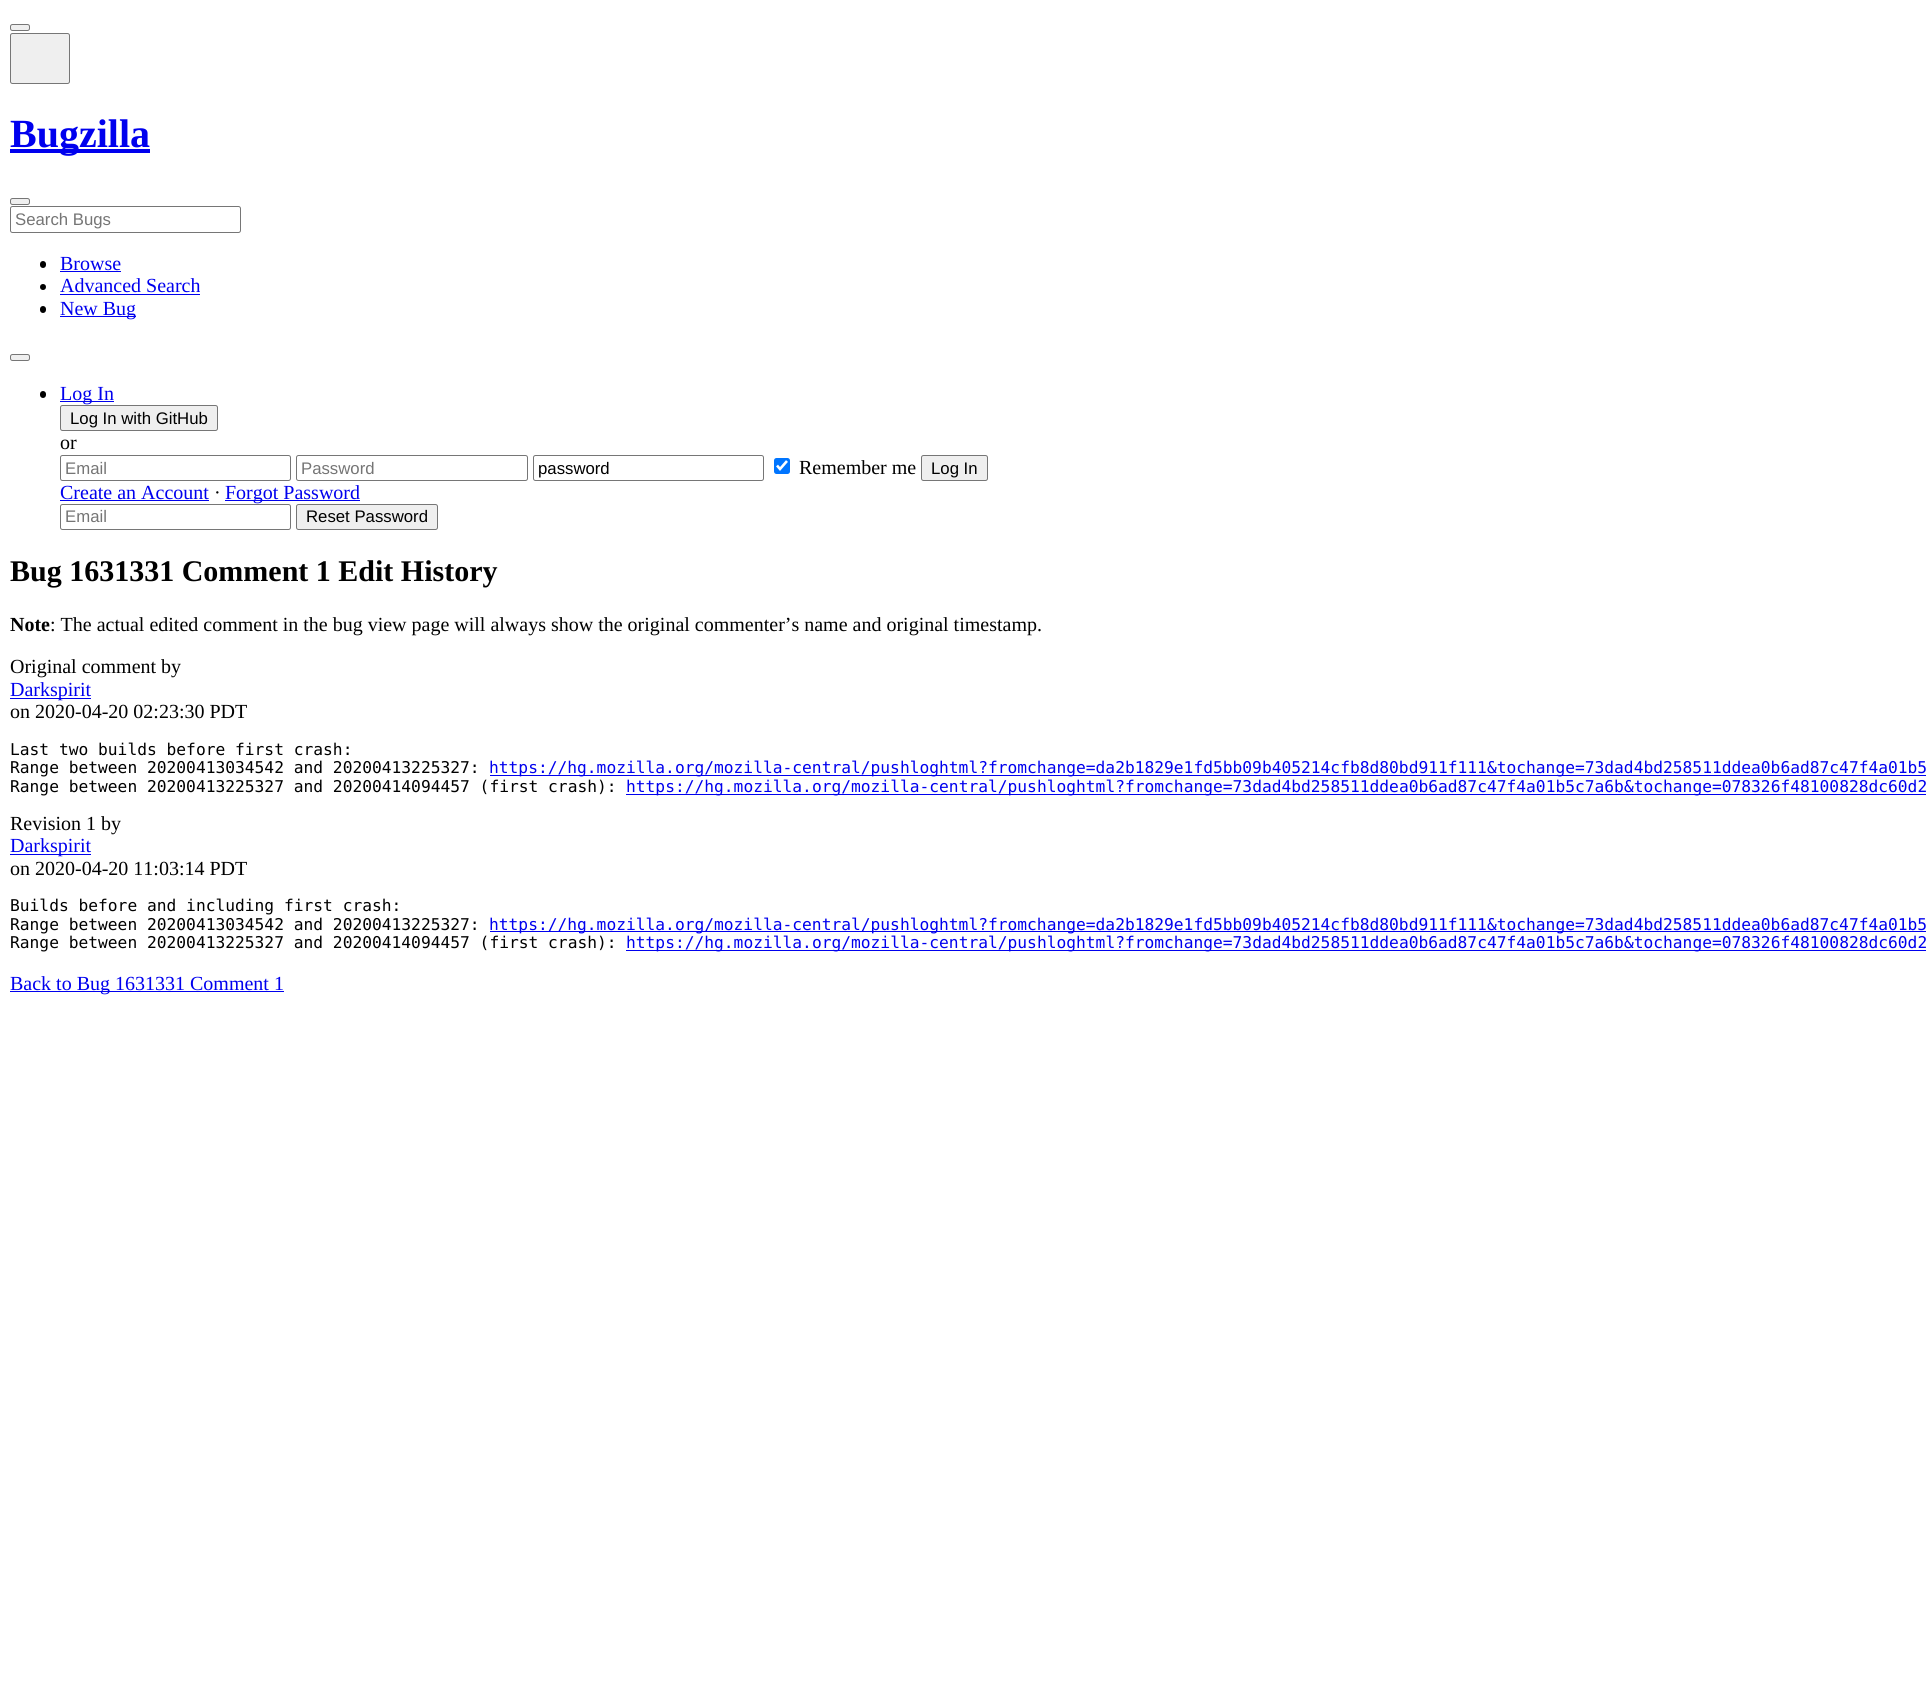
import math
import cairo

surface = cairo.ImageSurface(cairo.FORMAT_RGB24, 1926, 1691)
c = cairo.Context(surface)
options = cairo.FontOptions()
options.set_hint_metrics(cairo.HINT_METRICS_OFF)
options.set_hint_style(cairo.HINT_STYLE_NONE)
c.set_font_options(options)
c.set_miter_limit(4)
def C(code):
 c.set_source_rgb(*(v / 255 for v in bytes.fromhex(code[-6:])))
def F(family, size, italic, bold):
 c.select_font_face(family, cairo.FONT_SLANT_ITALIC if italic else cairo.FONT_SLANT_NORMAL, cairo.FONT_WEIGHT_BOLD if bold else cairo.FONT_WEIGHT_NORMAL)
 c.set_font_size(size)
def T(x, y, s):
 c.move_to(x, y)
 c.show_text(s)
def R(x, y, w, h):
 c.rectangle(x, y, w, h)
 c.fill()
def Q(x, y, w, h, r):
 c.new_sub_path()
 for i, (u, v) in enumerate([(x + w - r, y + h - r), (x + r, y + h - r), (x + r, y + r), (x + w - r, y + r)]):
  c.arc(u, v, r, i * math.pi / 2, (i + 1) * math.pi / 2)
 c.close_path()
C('ffffff')
c.paint()
C('efefef')
Q(10.5,24.5,19,6,2)
c.fill_preserve()
C('767676')
c.set_line_width(1)
c.stroke()
C('efefef')
Q(10.5,33.5,59,50,2)
c.fill_preserve()
C('767676')
c.stroke()
C('0000ee')
R(10,149,140,4)
F('Liberation Serif',40,0,1)
T(10,147,'Bugzilla')
C('efefef')
Q(10.5,198.5,19,6,2)
c.fill_preserve()
C('767676')
c.stroke()
Q(10.5,206.5,230,26,2)
c.stroke()
F('Liberation Sans',16.75,0,0)
C('757575')
T(15,225,'Search Bugs')
C('000000')
Q(40,261,6,7,3)
c.fill()
F('Liberation Serif',20,0,0)
C('0000ee')
T(60,270,'Browse')
R(60,271,61,1)
C('000000')
c.new_path()
c.arc(43,287,3,0,2 * math.pi)
c.fill()
C('0000ee')
T(60,292,'Advanced Search')
R(60,294,140,1)
C('000000')
Q(40,306,6,7,3)
c.fill()
C('0000ee')
R(60,316,76,1)
T(60,315,'New Bug')
C('efefef')
Q(10.5,354.5,19,6,2)
c.fill_preserve()
C('767676')
c.stroke()
C('000000')
Q(40,391,6,7,3)
c.fill()
C('0000ee')
R(60,401,54,1)
T(60,400,'Log In')
C('efefef')
Q(60.5,405.5,157,25,2)
c.fill_preserve()
C('767676')
c.stroke()
F('Liberation Sans',16.75,0,0)
C('000000')
T(70,424,'Log In with GitHub')
F('Liberation Serif',20,0,0)
T(60,449,'or')
Q(60.5,455.5,230,25,2)
C('767676')
c.stroke()
F('Liberation Sans',16.75,0,0)
C('757575')
T(65,474,'Email')
Q(296.5,455.5,231,25,2)
C('767676')
c.stroke()
C('757575')
T(301,474,'Password')
Q(533.5,455.5,230,25,2)
C('767676')
c.stroke()
C('000000')
T(538,474,'password')
C('0075ff')
Q(774,458,16,16,2.5)
c.fill()
c.new_path()
c.move_to(777,465.5)
c.line_to(780,469)
c.line_to(787,461)
C('ffffff')
c.set_line_width(2.6)
c.stroke()
F('Liberation Serif',20,0,0)
C('000000')
T(799,474,'Remember me')
C('efefef')
Q(921.5,455.5,66,25,2)
c.fill_preserve()
C('767676')
c.set_line_width(1)
c.stroke()
F('Liberation Sans',16.75,0,0)
C('000000')
T(931,474,'Log In')
F('Liberation Serif',20,0,0)
C('0000ee')
T(60,499,'Create an Account')
R(60,500,149,1)
C('000000')
T(214,499,'·')
C('0000ee')
R(225,500,135,1)
T(225,499,'Forgot Password')
Q(60.5,504.5,230,25,2)
C('767676')
c.stroke()
F('Liberation Sans',16.75,0,0)
C('757575')
T(65,522,'Email')
C('efefef')
Q(296.5,504.5,141,25,2)
c.fill_preserve()
C('767676')
c.stroke()
C('000000')
T(306,522,'Reset Password')
F('Liberation Serif',30,0,1)
T(10,581,'Bug 1631331 Comment 1 Edit History')
F('Liberation Serif',20,0,1)
T(10,631,'Note')
F('Liberation Serif',20,0,0)
T(50,631,': The actual edited comment in the bug view page will always show the original commenter’s name and original timestamp.')
T(10,673,'Original comment by')
C('0000ee')
R(10,698,81,1)
T(10,696,'Darkspirit')
C('000000')
T(10,718,'on 2020-04-20 02:23:30 PDT')
F('DejaVu Sans Mono',16.25,0,0)
T(10,755,'Last two builds before first crash:')
T(10,773,'Range between 20200413034542 and 20200413225327:')
C('0000ee')
R(490,775,1436,1)
T(489,773,'https://hg.mozilla.org/mozilla-central/pushloghtml?fromchange=da2b1829e1fd5bb09b405214cfb8d80bd911f111&tochange=73dad4bd258511ddea0b6ad87c47f4a01b5')
C('000000')
T(10,792,'Range between 20200413225327 and 20200414094457 (first crash):')
C('0000ee')
R(626,794,1300,1)
T(626,792,'https://hg.mozilla.org/mozilla-central/pushloghtml?fromchange=73dad4bd258511ddea0b6ad87c47f4a01b5c7a6b&tochange=078326f48100828dc60d2')
F('Liberation Serif',20,0,0)
C('000000')
T(10,830,'Revision 1 by')
C('0000ee')
R(10,854,81,1)
T(10,852,'Darkspirit')
C('000000')
T(10,875,'on 2020-04-20 11:03:14 PDT')
F('DejaVu Sans Mono',16.25,0,0)
T(10,911,'Builds before and including first crash:')
T(10,930,'Range between 20200413034542 and 20200413225327:')
C('0000ee')
R(490,931,1436,1)
T(489,930,'https://hg.mozilla.org/mozilla-central/pushloghtml?fromchange=da2b1829e1fd5bb09b405214cfb8d80bd911f111&tochange=73dad4bd258511ddea0b6ad87c47f4a01b5')
C('000000')
T(10,948,'Range between 20200413225327 and 20200414094457 (first crash):')
C('0000ee')
R(626,950,1300,1)
T(626,948,'https://hg.mozilla.org/mozilla-central/pushloghtml?fromchange=73dad4bd258511ddea0b6ad87c47f4a01b5c7a6b&tochange=078326f48100828dc60d2')
R(10,991,274,1)
F('Liberation Serif',20,0,0)
T(10,990,'Back to Bug 1631331 Comment 1')
surface.write_to_png('o.png')
